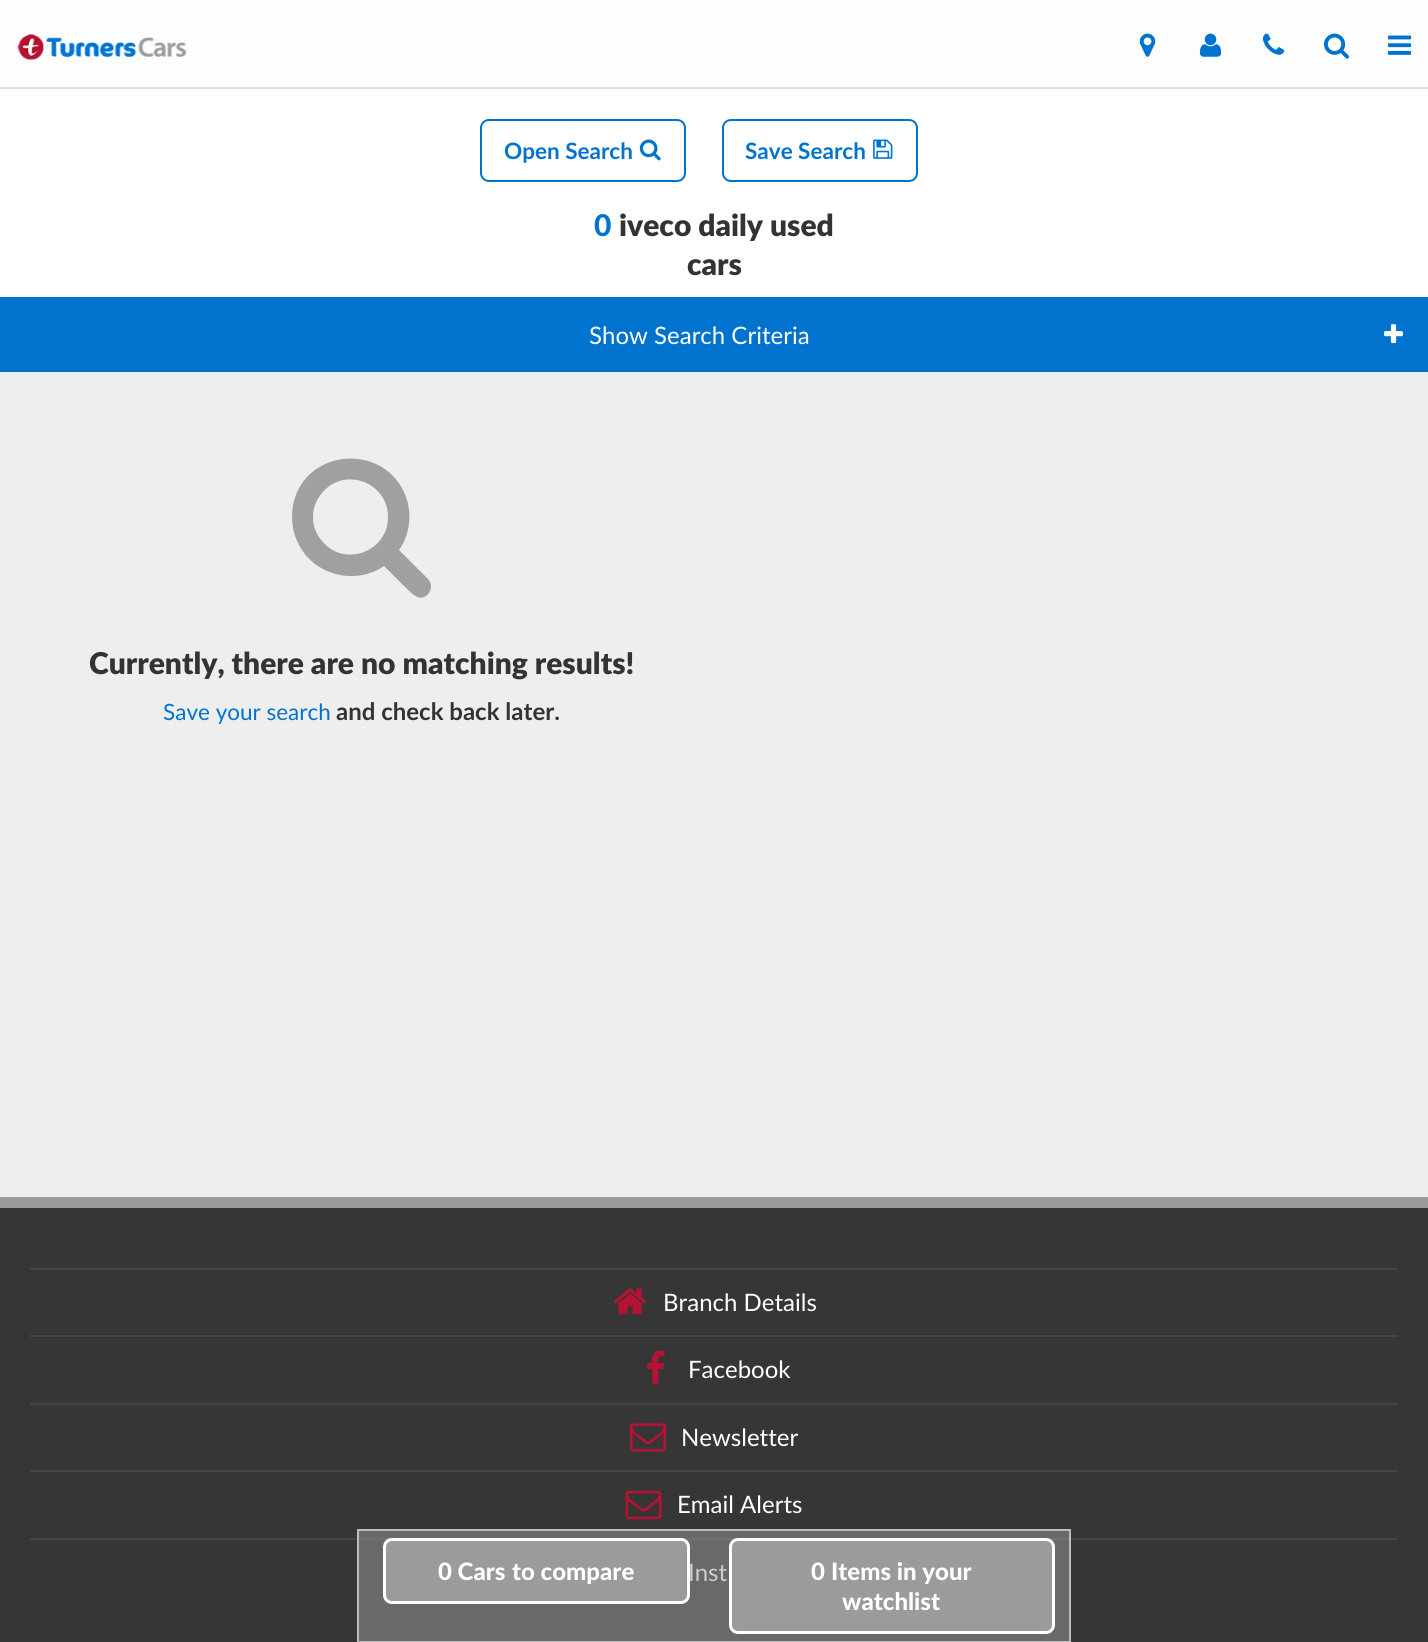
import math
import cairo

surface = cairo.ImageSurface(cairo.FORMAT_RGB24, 1428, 1642)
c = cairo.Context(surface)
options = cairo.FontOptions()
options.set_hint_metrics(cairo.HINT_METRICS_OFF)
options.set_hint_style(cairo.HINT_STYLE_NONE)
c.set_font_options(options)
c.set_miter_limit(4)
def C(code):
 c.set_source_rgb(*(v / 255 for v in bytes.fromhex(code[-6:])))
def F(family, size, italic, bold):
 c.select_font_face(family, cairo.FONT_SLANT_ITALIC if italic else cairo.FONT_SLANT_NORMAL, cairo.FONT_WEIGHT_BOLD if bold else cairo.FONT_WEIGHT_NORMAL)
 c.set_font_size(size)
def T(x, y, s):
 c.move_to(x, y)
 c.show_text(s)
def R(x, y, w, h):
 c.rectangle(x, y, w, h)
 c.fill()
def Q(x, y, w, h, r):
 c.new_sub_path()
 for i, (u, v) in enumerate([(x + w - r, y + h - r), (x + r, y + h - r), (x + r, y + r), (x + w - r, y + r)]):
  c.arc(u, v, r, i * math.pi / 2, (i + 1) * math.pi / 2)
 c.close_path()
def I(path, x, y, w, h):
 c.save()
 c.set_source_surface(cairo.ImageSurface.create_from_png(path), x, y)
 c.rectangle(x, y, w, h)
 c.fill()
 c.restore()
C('eeeeee')
c.paint()
C('fdfdfd')
R(0,0,1428,87)
C('dddddd')
R(0,87,1428,2)
I('1.png',17,34,170,26)
I('2.png',1139,33,17,24)
I('3.png',1199,33,23,24)
I('4.png',1262,33,23,22)
I('5.png',1324,33,25,26)
I('6.png',1387,35,25,20)
C('ffffff')
R(0,89,1428,208)
Q(481,120,204,61,8)
C('0073cf')
c.stroke()
F('Lato',22.5,0,1)
T(504,159,'Open Search')
I('7.png',639,139,22,22)
Q(723,120,194,61,8)
c.stroke()
T(745,159,'Save Search')
I('8.png',873,139,20,20)
F('Lato Black',30,0,0)
T(594,236,'0')
F('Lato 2 Black',30,0,0)
C('333333')
T(619,236,'iveco daily used')
T(687,275,'cars')
C('0073cf')
R(0,297,1428,75)
F('Lato',24,0,0)
C('ffffff')
T(589,344,'Show Search Criteria')
I('9.png',1384,324,19,20)
C('9fa0a1')
c.new_path()
c.move_to(388,517)
c.curve_to(388,482,344,466,322,493)
c.curve_to(316,500,313,508,313,517)
c.curve_to(313,526,316,534,322,541)
c.curve_to(344,568,388,552,388,517)
c.close_path()
c.move_to(431,587)
c.curve_to(431,590,429,594,426,596)
c.curve_to(417,602,409,590,403,585)
c.line_to(384,566)
c.curve_to(355,586,313,575,298,543)
c.curve_to(292,531,291,518,293,505)
c.curve_to(305,446,389,442,407,500)
c.curve_to(412,517,409,536,399,550)
c.line_to(428,579)
c.curve_to(430,581,431,584,431,587)
c.close_path()
c.fill()
F('Lato 2 Black',30,0,0)
C('333333')
T(89,674,'Currently, there are no matching results!')
F('Lato',22.5,0,0)
C('0073cf')
T(163,720,'Save your search')
F('Lato',24,0,1)
C('333333')
T(336,720,'and check back later.')
C('363636')
R(0,1208,1428,434)
C('686969')
R(359,1531,710,110)
C('444444')
R(30,1538,1368,2)
C('6f7070')
R(357,1538,714,2)
c.rectangle(358,1530,712,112)
C('bbbbbb')
c.stroke()
F('Lato',24,0,0)
C('cdcdce')
T(688,1581,'Inst')
C('9a9b9c')
Q(384.5,1539.5,304,63,7.5)
c.fill_preserve()
C('ffffff')
c.set_line_width(3)
c.stroke()
F('Lato Black',24,0,0)
T(438,1580,'0 Cars')
T(512,1580,'to compare')
C('9a9b9c')
Q(730.5,1539.5,323,93,7.5)
c.fill_preserve()
C('ffffff')
c.stroke()
T(811,1580,'0')
T(831,1580,'Items in your')
T(842,1610,'watchlist')
C('9a9b9c')
R(0,1197,1428,11)
C('444444')
R(30,1268,1368,2)
I('10.png',613,1288,34,27)
F('Lato',24,0,0)
C('ffffff')
T(663,1311,'Branch Details')
C('444444')
R(30,1335,1368,2)
I('11.png',647,1350,18,35)
C('ffffff')
T(688,1378,'Facebook')
C('444444')
R(30,1403,1368,2)
I('12.png',630,1423,36,29)
C('ffffff')
T(681,1446,'Newsletter')
C('444444')
R(30,1470,1368,2)
I('13.png',625,1490,37,30)
C('ffffff')
T(677,1513,'Email Alerts')
surface.write_to_png('o.png')
